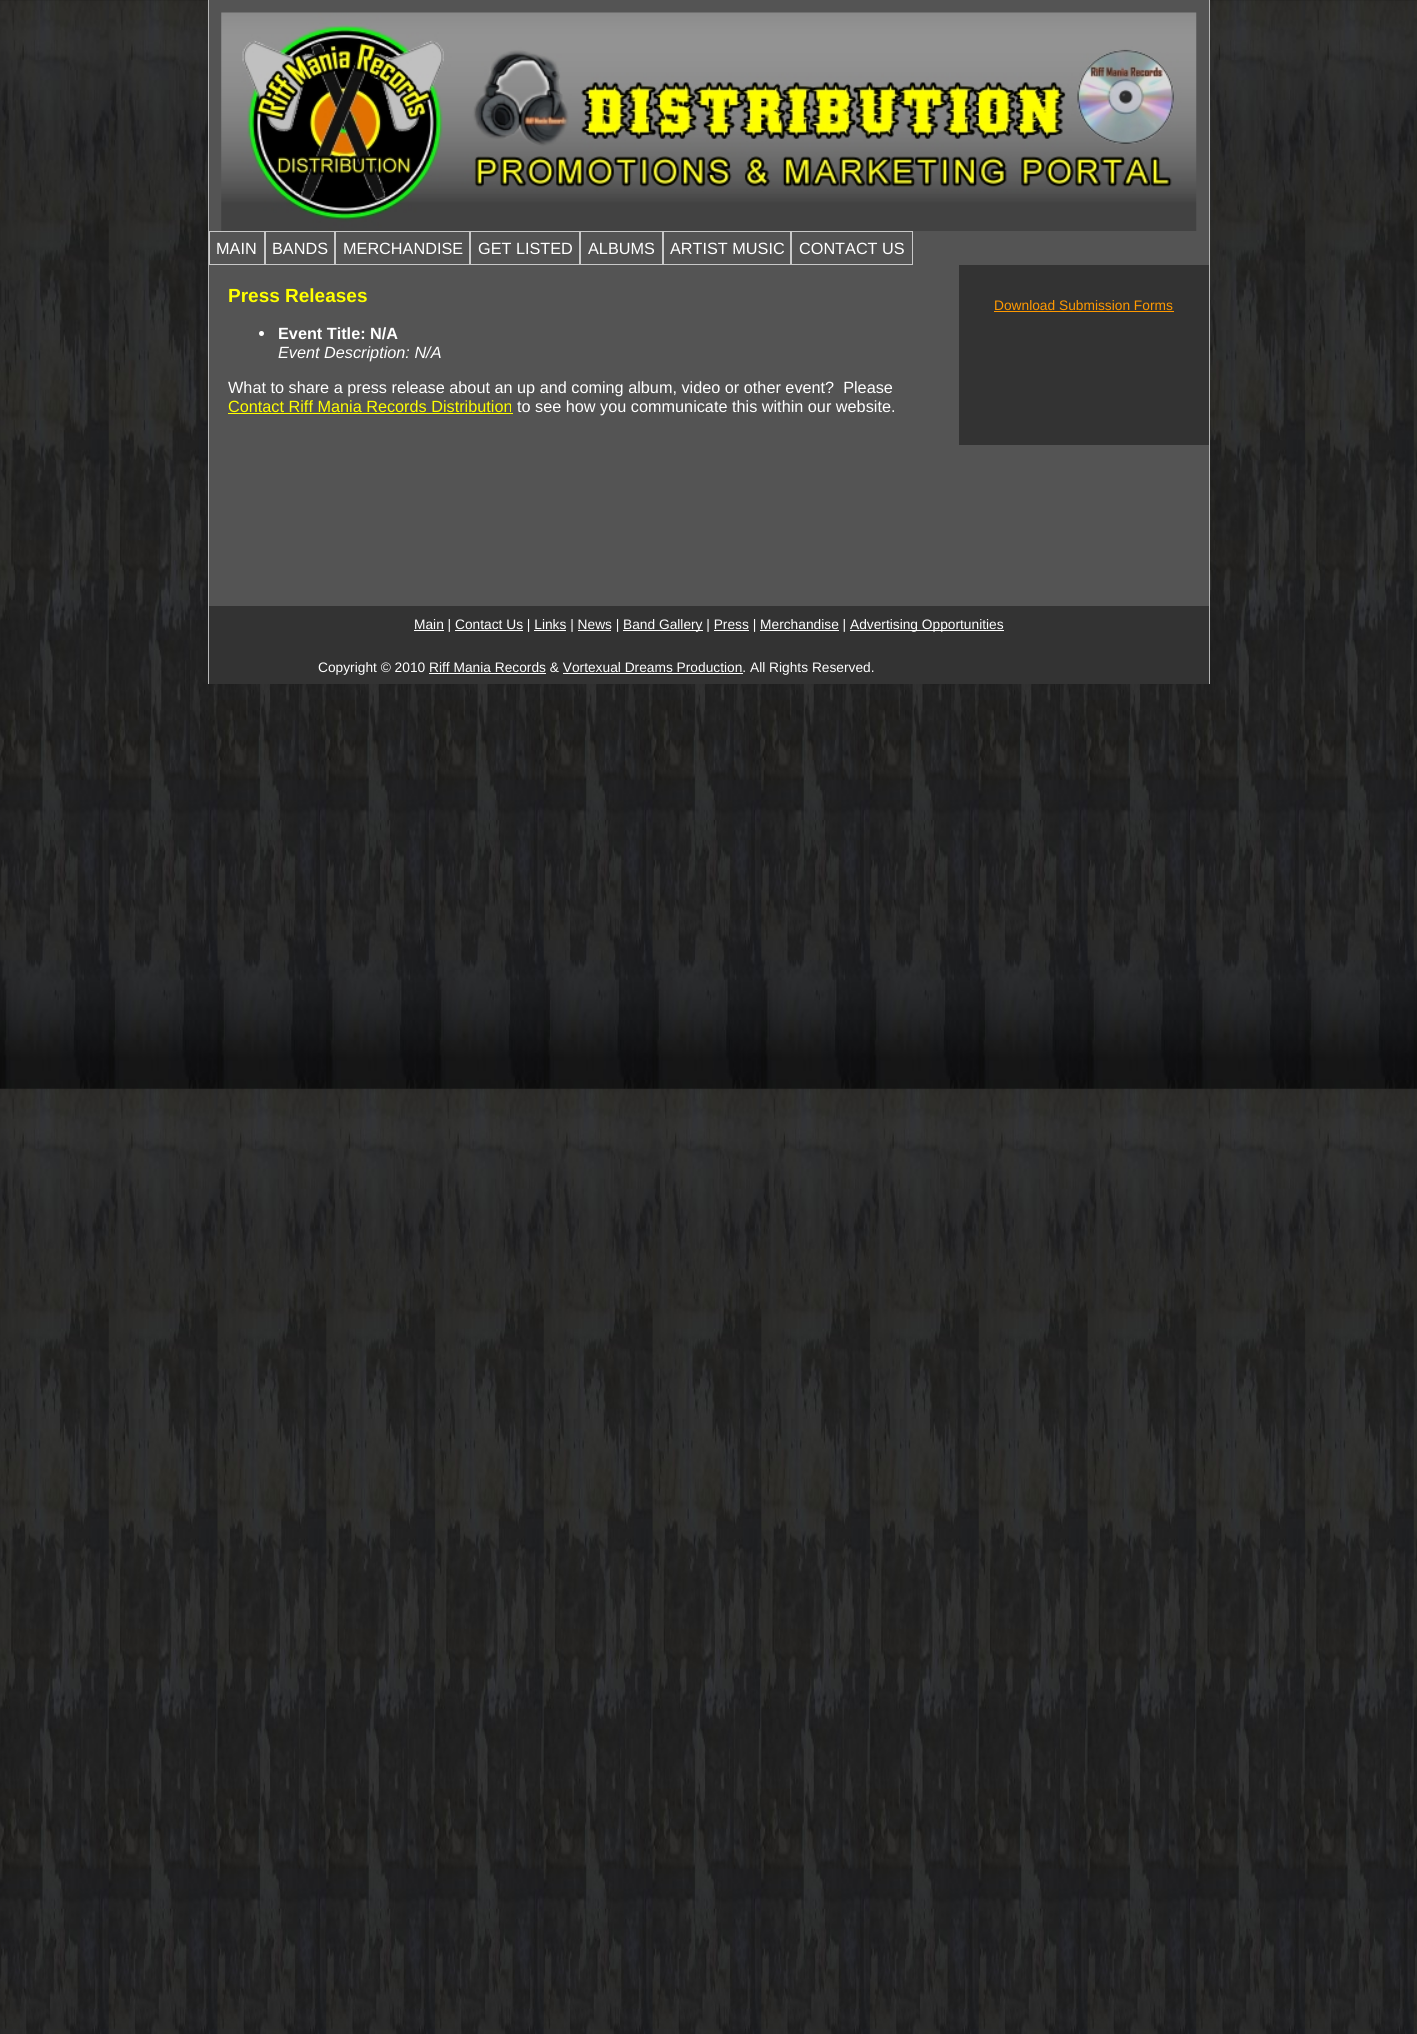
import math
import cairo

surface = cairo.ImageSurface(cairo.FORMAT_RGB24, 1417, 2034)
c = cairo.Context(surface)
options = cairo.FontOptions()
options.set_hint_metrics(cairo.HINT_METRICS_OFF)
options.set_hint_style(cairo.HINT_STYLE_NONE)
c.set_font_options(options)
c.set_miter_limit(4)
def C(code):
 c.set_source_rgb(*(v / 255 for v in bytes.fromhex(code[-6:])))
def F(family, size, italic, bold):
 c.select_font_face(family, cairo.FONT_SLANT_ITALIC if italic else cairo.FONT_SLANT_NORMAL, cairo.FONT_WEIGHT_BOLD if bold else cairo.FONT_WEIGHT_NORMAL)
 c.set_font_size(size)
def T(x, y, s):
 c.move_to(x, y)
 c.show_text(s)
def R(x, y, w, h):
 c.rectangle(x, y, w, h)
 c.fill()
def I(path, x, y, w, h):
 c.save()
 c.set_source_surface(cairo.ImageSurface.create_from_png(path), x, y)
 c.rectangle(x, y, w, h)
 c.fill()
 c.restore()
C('ffffff')
c.paint()
I('1.png',0,0,1417,2034)
C('545454')
R(209,0,1000,606)
C('b7b7b7')
R(1209,0,1,684)
R(208,0,1,684)
I('2.png',221,12,976,219)
c.rectangle(209.5,231.5,55,33)
C('c9c9c9')
c.set_line_width(1)
c.stroke()
F('Liberation Sans',16.25,0,0)
C('ffffff')
T(216,254,'MAIN')
c.rectangle(265.5,231.5,69,33)
C('c9c9c9')
c.stroke()
C('ffffff')
T(272,254,'BANDS')
c.rectangle(335.5,231.5,134,33)
C('c9c9c9')
c.stroke()
C('ffffff')
T(343,254,'MERCHANDISE')
c.rectangle(470.5,231.5,109,33)
C('c9c9c9')
c.stroke()
C('ffffff')
T(478,254,'GET LISTED')
c.rectangle(580.5,231.5,82,33)
C('c9c9c9')
c.stroke()
C('ffffff')
T(588,254,'ALBUMS')
c.rectangle(663.5,231.5,127,33)
C('c9c9c9')
c.stroke()
C('ffffff')
T(670,254,'ARTIST MUSIC')
c.rectangle(791.5,231.5,121,33)
C('c9c9c9')
c.stroke()
C('ffffff')
T(799,254,'CONTACT US')
F('Liberation Sans',19,0,1)
C('ffff00')
T(228,302,'Press Releases')
C('ffffff')
c.new_path()
c.arc(261.5,333.5,2.5,0,2 * math.pi)
c.fill()
F('Liberation Sans',16.25,0,1)
T(278,339,'Event Title: N/A')
F('Liberation Sans',16.25,1,0)
T(278,358,'Event Description: N/A')
F('Liberation Sans',16.25,0,0)
T(228,393,'What to share a press release about an up and coming album, video or other event?  Please')
C('ffff00')
T(228,412,'Contact Riff Mania Records Distribution')
R(228,413,285,1)
C('ffffff')
T(517,412,'to see how you communicate this within our website.')
C('333333')
R(959,265,250,180)
F('Liberation Sans',13.75,0,0)
C('ff9900')
T(994,310,'Download Submission Forms')
R(994,311,180,1)
C('333333')
R(209,606,1000,78)
C('ffffff')
R(414,630,30,1)
T(414,629,'Main | Contact Us | Links | News |')
R(623,630,80,1)
T(623,629,'Band Gallery | Press | Merchandise |')
R(850,630,154,1)
T(850,629,'Advertising Opportunities')
R(455,630,68,1)
R(534,630,32,1)
R(578,630,33,1)
R(714,630,35,1)
R(760,630,79,1)
T(318,672,'Copyright © 2010 Riff Mania Records & Vortexual Dreams Production. All Rights Reserved.')
R(429,673,117,1)
R(563,673,180,1)
surface.write_to_png('o.png')
